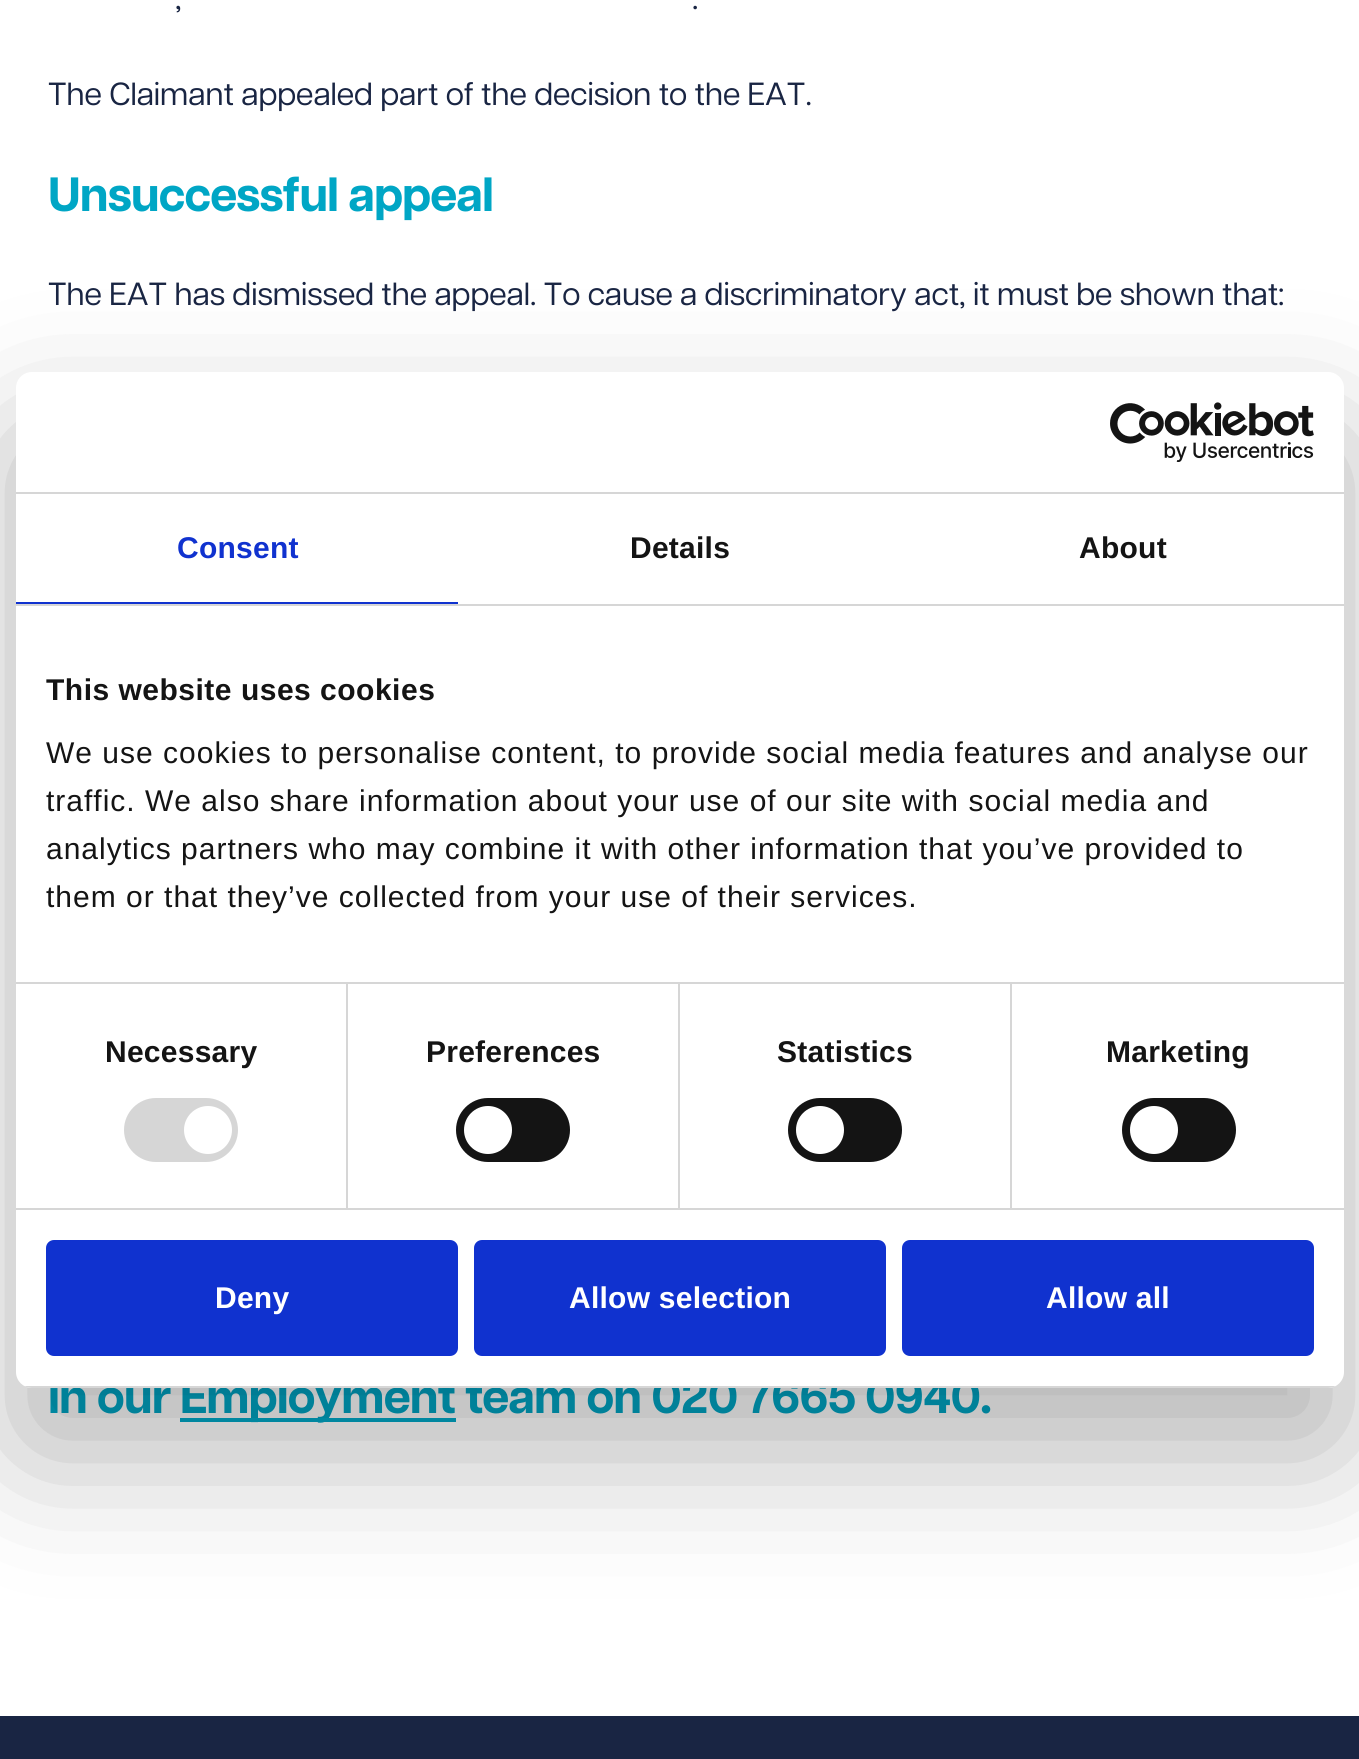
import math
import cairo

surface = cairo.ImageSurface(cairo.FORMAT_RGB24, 1359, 1759)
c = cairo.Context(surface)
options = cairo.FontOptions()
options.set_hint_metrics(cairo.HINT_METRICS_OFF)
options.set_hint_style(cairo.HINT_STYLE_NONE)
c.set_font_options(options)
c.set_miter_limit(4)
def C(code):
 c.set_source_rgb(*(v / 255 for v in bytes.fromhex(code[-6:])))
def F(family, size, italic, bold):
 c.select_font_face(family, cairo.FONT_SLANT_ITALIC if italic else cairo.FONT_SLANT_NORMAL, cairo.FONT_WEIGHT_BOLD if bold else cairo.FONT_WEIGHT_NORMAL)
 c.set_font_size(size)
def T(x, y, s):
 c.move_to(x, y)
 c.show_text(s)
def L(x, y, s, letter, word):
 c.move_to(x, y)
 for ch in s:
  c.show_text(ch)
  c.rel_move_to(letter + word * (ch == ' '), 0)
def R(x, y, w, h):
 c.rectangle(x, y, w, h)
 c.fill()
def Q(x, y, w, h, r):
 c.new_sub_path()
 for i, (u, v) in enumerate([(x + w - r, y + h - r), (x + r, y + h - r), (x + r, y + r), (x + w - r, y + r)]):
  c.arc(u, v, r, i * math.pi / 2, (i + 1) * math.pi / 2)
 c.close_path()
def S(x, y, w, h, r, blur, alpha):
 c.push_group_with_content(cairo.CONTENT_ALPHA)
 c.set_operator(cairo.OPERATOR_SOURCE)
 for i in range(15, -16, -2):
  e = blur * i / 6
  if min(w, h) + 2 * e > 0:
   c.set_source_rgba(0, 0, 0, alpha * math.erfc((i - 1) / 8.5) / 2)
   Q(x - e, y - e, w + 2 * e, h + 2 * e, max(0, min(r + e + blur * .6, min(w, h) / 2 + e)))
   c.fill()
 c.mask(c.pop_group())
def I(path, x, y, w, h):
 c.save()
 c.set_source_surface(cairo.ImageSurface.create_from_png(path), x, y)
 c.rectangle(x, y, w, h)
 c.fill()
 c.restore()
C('ffffff')
c.paint()
F('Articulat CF',32,0,0)
C('192543')
T(175,9,',')
T(692,9,'.')
T(48,105,'The Claimant appealed part of the decision to the EAT.')
F('Articulat CF',48,0,1)
C('00a6c5')
L(48,211,'Unsuccessful appeal',-.95,0)
F('Articulat CF',32,0,0)
C('192543')
T(48,305,'The EAT has dismissed the appeal. To cause a discriminatory act, it must be shown that:')
F('Articulat CF',48,0,1)
C('00a6c5')
L(48,1413,'in our',-.95,0)
R(180,1418,276,4)
L(180,1413,'Employment team on 020 7665 0940.',-.95,0)
C('192543')
R(0,1716,1359,43)
C('000000')
S(16,436,1328,1016,16,68,.3)
C('ffffff')
Q(16,372,1328,1016,16)
c.fill()
C('d6d6d6')
R(16,492,1328,2)
I('1.png',1110,402,204,60)
R(16,604,1328,2)
C('1032cf')
R(16,602,442,2)
F('Liberation Sans',30,0,1)
L(177,558,'Consent',.25,0)
C('141414')
L(630,558,'Details',.25,0)
L(1079,558,'About',.25,0)
C('d6d6d6')
R(16,982,1328,2)
C('141414')
L(46,700,'This website uses cookies',.5,0)
F('Liberation Sans',30,0,0)
L(46,763,'We use cookies to personalise content, to provide social media features and analyse our',1,0)
L(46,811,'traffic. We also share information about your use of our site with social media and',1,0)
L(46,859,'analytics partners who may combine it with other information that you’ve provided to',1,0)
L(46,907,'them or that they’ve collected from your use of their services.',1,0)
C('d6d6d6')
R(16,1208,1328,2)
R(346,984,2,224)
F('Liberation Sans',30,0,1)
C('141414')
L(105,1062,'Necessary',.25,0)
C('d6d6d6')
Q(124,1098,114,64,32)
c.fill()
C('ffffff')
c.arc(208,1130,24,0,2 * math.pi)
c.fill()
C('d6d6d6')
R(678,984,2,224)
C('141414')
L(426,1062,'Preferences',.25,0)
Q(456,1098,114,64,32)
c.fill()
C('ffffff')
c.arc(488,1130,24,0,2 * math.pi)
c.fill()
C('d6d6d6')
R(1010,984,2,224)
C('141414')
L(777,1062,'Statistics',.25,0)
Q(788,1098,114,64,32)
c.fill()
C('ffffff')
c.arc(820,1130,24,0,2 * math.pi)
c.fill()
C('141414')
L(1106,1062,'Marketing',.25,0)
Q(1122,1098,114,64,32)
c.fill()
C('ffffff')
c.arc(1154,1130,24,0,2 * math.pi)
c.fill()
c.save()
Q(16,372,1328,1016,16)
c.clip()
C('d6d6d6')
R(16,1386,1328,2)
c.restore()
C('1032cf')
Q(48,1242,408,112,6)
c.fill_preserve()
c.set_line_width(4)
c.stroke()
C('ffffff')
L(215,1308,'Deny',.25,0)
C('1032cf')
Q(476,1242,408,112,6)
c.fill_preserve()
c.stroke()
C('ffffff')
L(569,1308,'Allow selection',.25,0)
C('1032cf')
Q(904,1242,408,112,6)
c.fill_preserve()
c.stroke()
C('ffffff')
L(1046,1308,'Allow all',.25,0)
surface.write_to_png('o.png')
